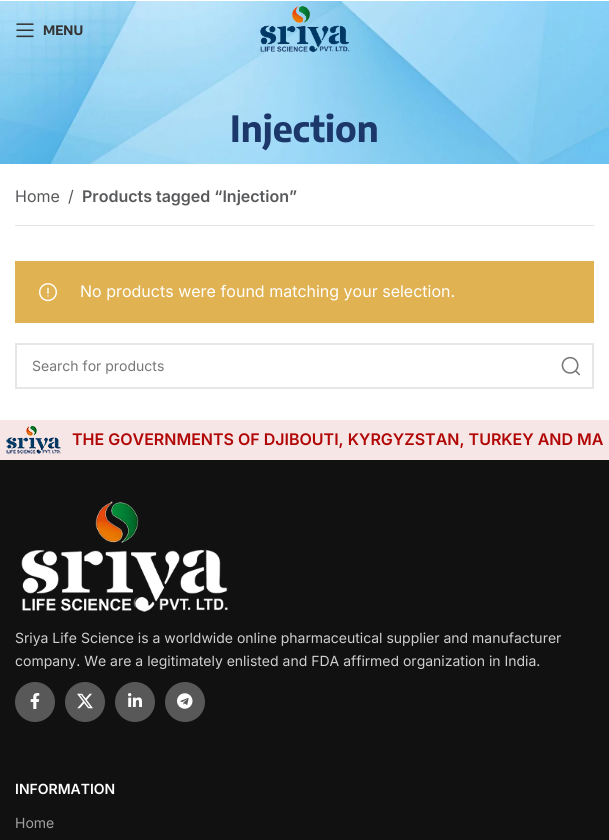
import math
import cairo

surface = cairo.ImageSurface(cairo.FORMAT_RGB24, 609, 840)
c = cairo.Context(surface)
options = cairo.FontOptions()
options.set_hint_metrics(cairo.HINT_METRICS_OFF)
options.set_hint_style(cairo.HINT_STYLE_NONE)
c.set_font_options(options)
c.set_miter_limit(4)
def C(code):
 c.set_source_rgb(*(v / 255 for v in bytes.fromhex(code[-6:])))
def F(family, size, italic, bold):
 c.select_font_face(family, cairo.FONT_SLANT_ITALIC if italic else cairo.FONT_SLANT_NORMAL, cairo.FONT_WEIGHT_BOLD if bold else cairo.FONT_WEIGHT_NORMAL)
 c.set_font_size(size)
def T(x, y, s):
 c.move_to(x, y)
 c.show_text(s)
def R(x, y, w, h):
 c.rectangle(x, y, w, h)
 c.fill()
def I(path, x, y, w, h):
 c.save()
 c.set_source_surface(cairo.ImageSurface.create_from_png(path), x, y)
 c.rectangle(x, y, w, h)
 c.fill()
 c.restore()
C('ffffff')
c.paint()
I('3.png',0,1,609,163)
I('1.png',16,23,18,15)
F('Encode Sans Condensed',13,0,1)
C('333333')
T(43,35,'MENU')
I('2.png',260,5,90,48)
F('Encode Sans Condensed',36,0,1)
C('1c3769')
T(230,142,'Injection')
C('e4e4e4')
R(15,225,579,1)
F('Inter',16,0,0)
C('58595b')
T(15,202,'Home')
T(68,202,'/')
F('Inter SemiBold',16,0,0)
T(82,202,'Products tagged “Injection”')
C('e0b252')
R(15,261,579,62)
I('4.png',39,283,18,19)
F('Inter',16,0,0)
C('ffffff')
T(80,297,'No products were found matching your selection.')
c.rectangle(16,344,577,44)
C('e6e6e6')
c.stroke()
F('Inter',14,0,0)
C('777777')
T(32,371,'Search for products')
I('5.png',561,356,19,20)
C('111111')
R(0,460,609,380)
C('f7e6e6')
R(0,420,609,40)
I('6.png',6,425,55,29)
F('Inter SemiBold',16,0,0)
C('b10707')
T(72,445,'THE GOVERNMENTS OF DJIBOUTI, KYRGYZSTAN, TURKEY AND MA')
I('7.png',21,501,207,111)
F('Inter',14,0,0)
C('cfcfcf')
T(15,643,'Sriya Life Science is a worldwide online pharmaceutical supplier and manufacturer')
T(15,666,'company. We are a legitimately enlisted and FDA affirmed organization in India.')
C('585858')
c.new_path()
c.arc(35,702,20,0,2 * math.pi)
c.fill()
I('8.png',30,693,10,16)
c.arc(85,702,20,0,2 * math.pi)
c.fill()
I('9.png',77,693,16,16)
c.arc(135,702,20,0,2 * math.pi)
c.fill()
I('10.png',128,693,14,14)
c.arc(185,702,20,0,2 * math.pi)
c.fill()
I('11.png',177,693,16,16)
F('Inter SemiBold',14,0,0)
C('ffffff')
T(15,794,'INFORMATION')
F('Inter',14,0,0)
C('a0a0a0')
T(15,828,'Home')
surface.write_to_png('o.png')
